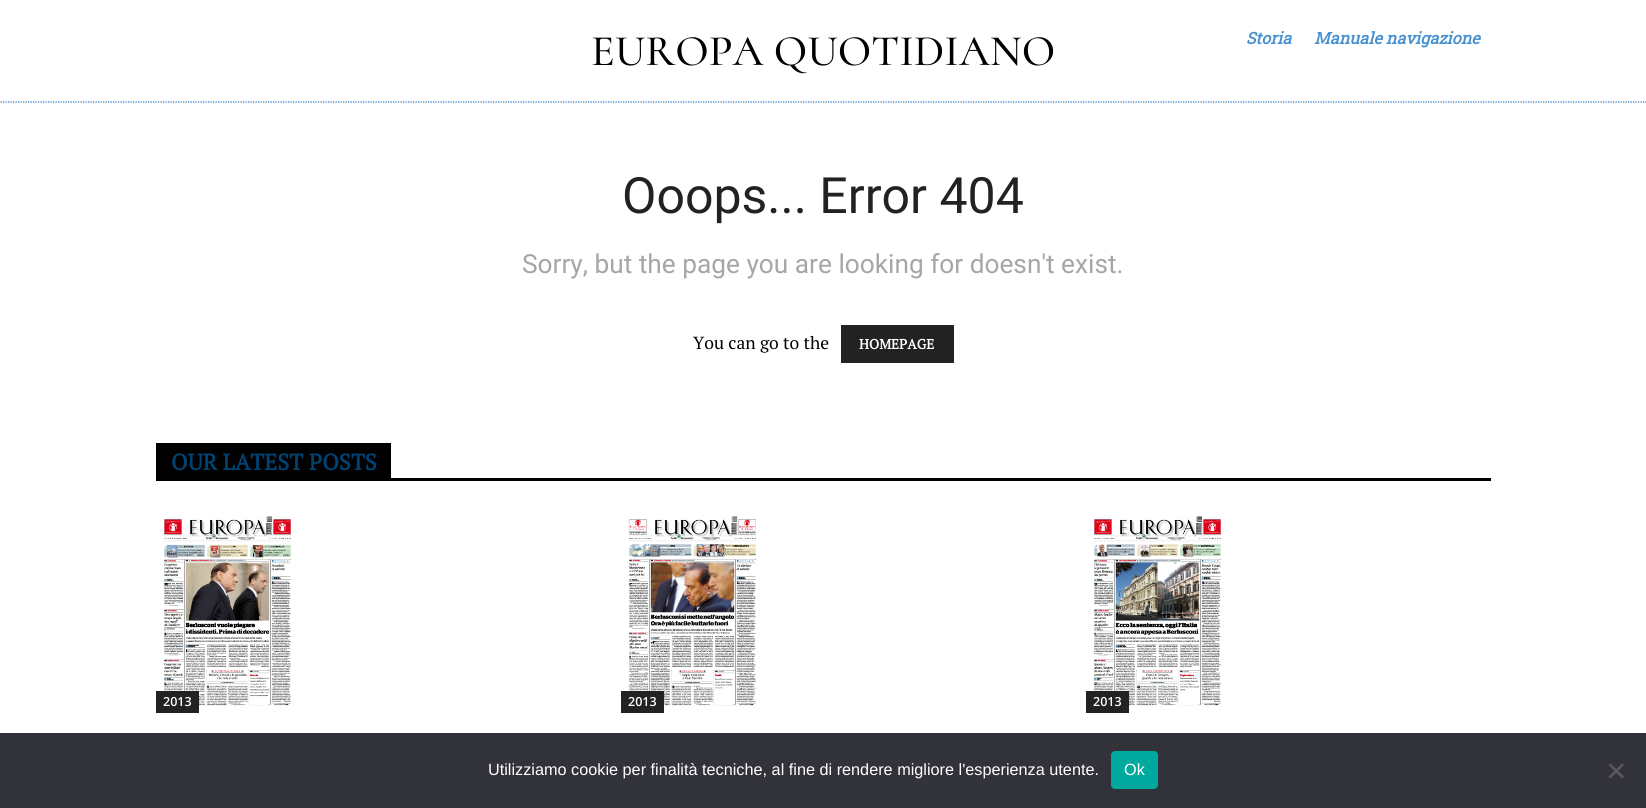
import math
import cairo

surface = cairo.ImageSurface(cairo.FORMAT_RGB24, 1646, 808)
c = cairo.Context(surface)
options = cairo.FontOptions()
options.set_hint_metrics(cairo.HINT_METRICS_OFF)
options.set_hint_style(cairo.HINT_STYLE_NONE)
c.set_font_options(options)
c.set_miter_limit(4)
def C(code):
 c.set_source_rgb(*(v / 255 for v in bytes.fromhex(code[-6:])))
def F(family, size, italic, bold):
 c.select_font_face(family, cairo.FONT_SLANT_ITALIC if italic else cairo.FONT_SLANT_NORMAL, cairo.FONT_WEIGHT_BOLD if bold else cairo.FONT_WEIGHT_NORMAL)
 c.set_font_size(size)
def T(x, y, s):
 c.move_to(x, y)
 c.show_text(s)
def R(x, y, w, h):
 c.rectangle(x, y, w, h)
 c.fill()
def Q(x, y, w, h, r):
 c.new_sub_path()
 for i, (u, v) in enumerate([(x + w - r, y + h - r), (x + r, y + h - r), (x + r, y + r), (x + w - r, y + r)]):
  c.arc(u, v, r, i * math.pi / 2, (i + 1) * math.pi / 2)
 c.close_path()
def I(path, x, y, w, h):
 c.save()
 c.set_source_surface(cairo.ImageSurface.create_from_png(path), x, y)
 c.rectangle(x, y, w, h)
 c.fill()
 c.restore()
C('ffffff')
c.paint()
F('Cormorant Medium',43.75,0,0)
C('000000')
T(591,65,'EUROPA QUOTIDIANO')
F('Roboto Slab',16.25,1,1)
C('4791d1')
T(1246,44,'Storia')
T(1314,44,'Manuale navigazione')
c.new_path()
c.move_to(.5,102)
c.line_to(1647,102)
C('1e73be')
c.set_line_width(1.2)
c.set_dash([1.25,1.25])
c.stroke()
F('Roboto',50,0,0)
C('222222')
T(622,213,'Ooops... Error 404')
F('Roboto',26.25,0,0)
C('a6a6a6')
T(522,273,'Sorry, but the page you are looking for doesn\'t exist.')
F('PT Serif',17.5,0,0)
C('000000')
T(693,349,'You can go to the')
C('222222')
R(841,325,113,38)
F('PT Serif',13.75,0,1)
C('ffffff')
T(859,349,'HOMEPAGE')
C('000000')
R(156,478,1335,3)
R(156,443,235,35)
F('PT Serif',22.5,0,1)
C('004272')
T(171,470,'OUR LATEST POSTS')
I('1.png',164,516,127,190)
C('222222')
R(156,691,43,22)
F('Open Sans SemiBold',12.5,0,0)
C('ffffff')
T(163,706,'2013')
I('2.png',629,516,127,190)
C('222222')
R(621,691,43,22)
C('ffffff')
T(628,706,'2013')
I('3.png',1094,516,127,190)
C('222222')
R(1086,691,43,22)
C('ffffff')
T(1093,706,'2013')
C('32323a')
R(0,733,1646,75)
F('Liberation Sans',16.25,0,0)
C('ffffff')
T(488,775,'Utilizziamo cookie per finalità tecniche, al fine di rendere migliore l\'esperienza utente.')
C('00a99d')
Q(1111,751,47,38,4)
c.fill()
C('ffffff')
T(1124,775,'Ok')
C('59595d')
c.new_path()
c.move_to(1622,763.5)
c.line_to(1624,765)
c.line_to(1610.5,778.5)
c.line_to(1608.5,776.5)
c.close_path()
c.fill()
c.new_path()
c.move_to(1608.5,765)
c.line_to(1610.5,763.5)
c.line_to(1624,776.5)
c.line_to(1622,778.5)
c.close_path()
c.fill()
surface.write_to_png('o.png')
